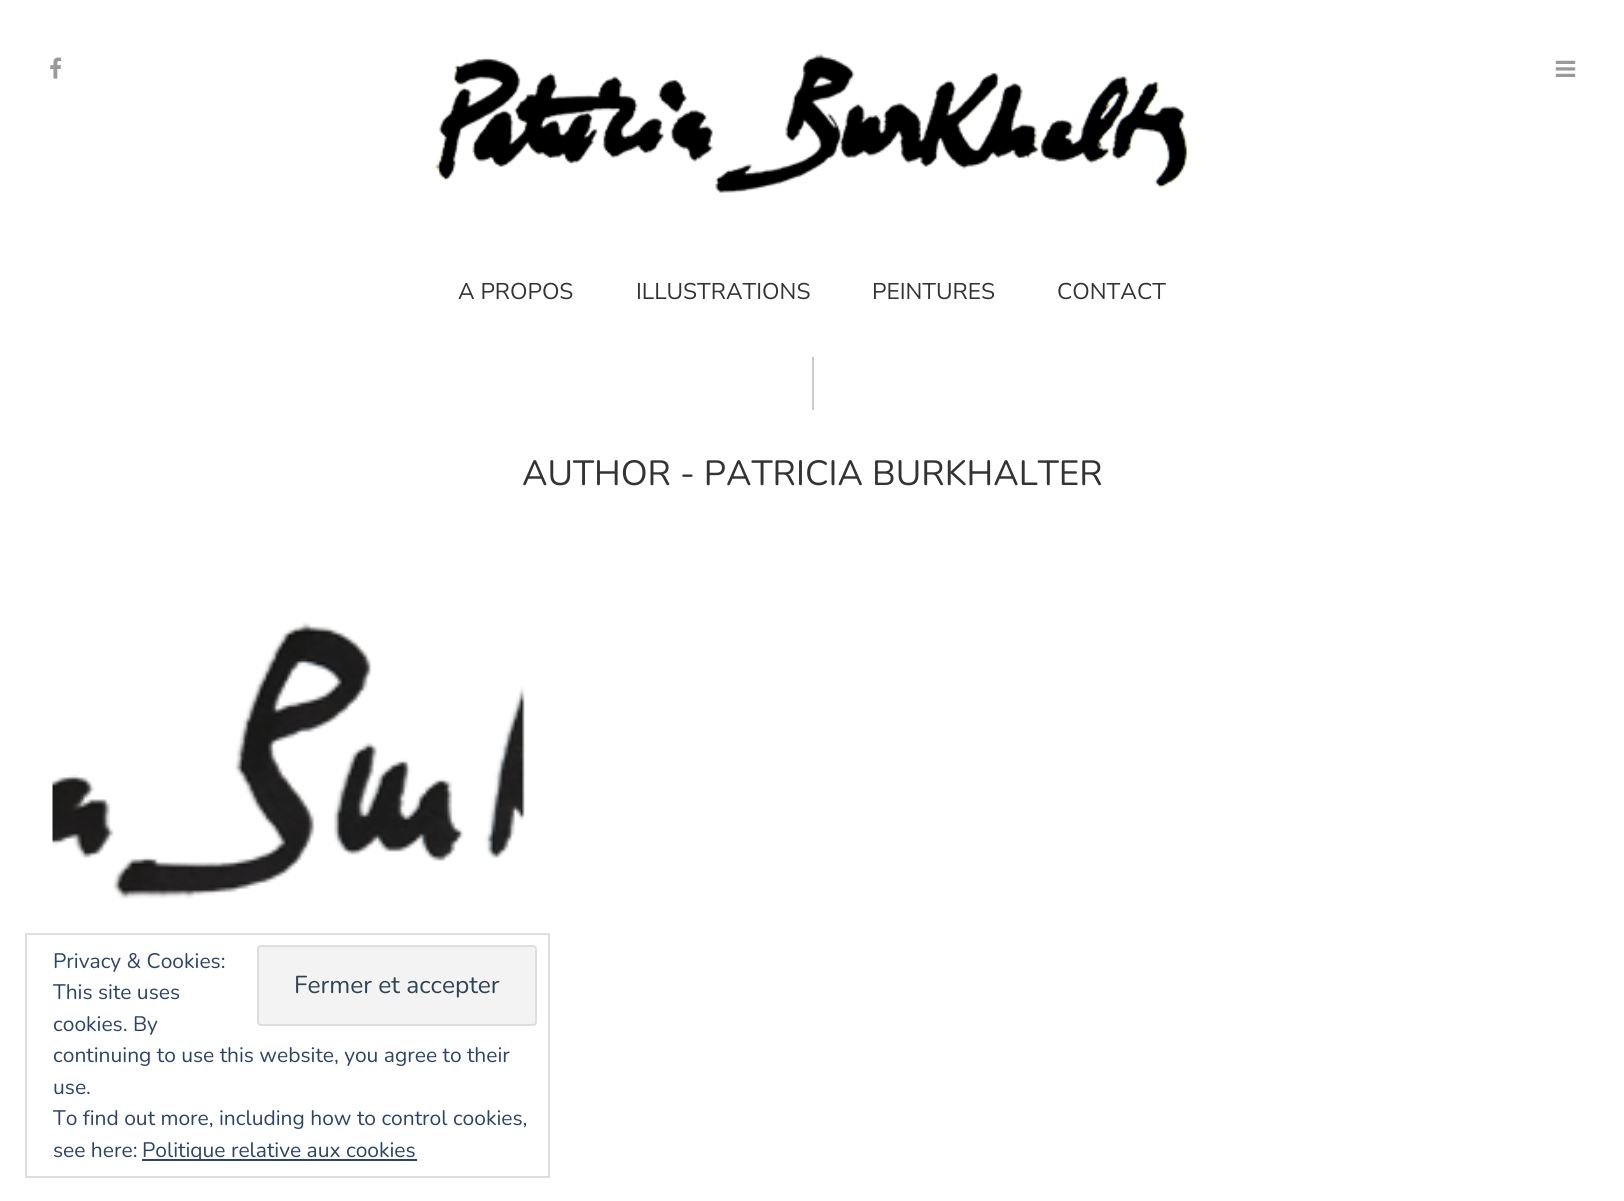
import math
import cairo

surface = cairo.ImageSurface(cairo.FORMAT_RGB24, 1624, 1201)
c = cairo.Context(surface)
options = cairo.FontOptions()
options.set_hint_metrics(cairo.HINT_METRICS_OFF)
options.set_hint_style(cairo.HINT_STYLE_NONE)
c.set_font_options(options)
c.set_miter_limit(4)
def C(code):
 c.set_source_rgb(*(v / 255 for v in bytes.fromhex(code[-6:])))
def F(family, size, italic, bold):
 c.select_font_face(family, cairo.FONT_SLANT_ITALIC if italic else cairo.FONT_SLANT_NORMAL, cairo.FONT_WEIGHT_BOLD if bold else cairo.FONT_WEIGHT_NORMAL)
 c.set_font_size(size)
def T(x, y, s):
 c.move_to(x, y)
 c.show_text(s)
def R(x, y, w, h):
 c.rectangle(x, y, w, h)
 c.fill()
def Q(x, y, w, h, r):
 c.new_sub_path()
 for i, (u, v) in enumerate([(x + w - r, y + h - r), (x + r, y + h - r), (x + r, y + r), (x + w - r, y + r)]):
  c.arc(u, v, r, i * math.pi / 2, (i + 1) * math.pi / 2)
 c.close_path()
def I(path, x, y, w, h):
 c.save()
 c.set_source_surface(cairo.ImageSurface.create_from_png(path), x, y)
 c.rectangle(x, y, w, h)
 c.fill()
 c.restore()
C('ffffff')
c.paint()
I('1.png',50,57,12,22)
I('2.png',1555,60,21,17)
I('3.png',435,54,754,139)
F('Nunito Sans ExtraLight',22.75,0,0)
C('333333')
T(458,299,'A PROPOS')
T(636,299,'ILLUSTRATIONS')
T(872,299,'PEINTURES')
T(1057,299,'CONTACT')
C('cccccc')
R(812,357,2,53)
F('Nunito ExtraLight',35,0,0)
C('333333')
T(522,485,'AUTHOR - PATRICIA BURKHALTER')
I('4.png',52,621,473,278)
c.rectangle(26,934,523,243)
C('dedede')
c.stroke()
F('Nunito ExtraLight',21,0,0)
C('2e4467')
T(53,968,'Privacy & Cookies:')
T(53,999,'This site uses')
C('f3f3f3')
Q(258,946,278,79,3)
c.fill_preserve()
C('dedede')
c.stroke()
F('Nunito ExtraLight',24.5,0,0)
C('2e4453')
T(294,993,'Fermer et accepter')
F('Nunito ExtraLight',21,0,0)
C('2e4467')
T(53,1031,'cookies. By')
T(53,1062,'continuing to use this website, you agree to their')
T(53,1094,'use.')
T(53,1125,'To find out more, including how to control cookies,')
T(53,1157,'see here:')
R(142,1159,275,2)
T(142,1157,'Politique relative aux cookies')
surface.write_to_png('o.png')
